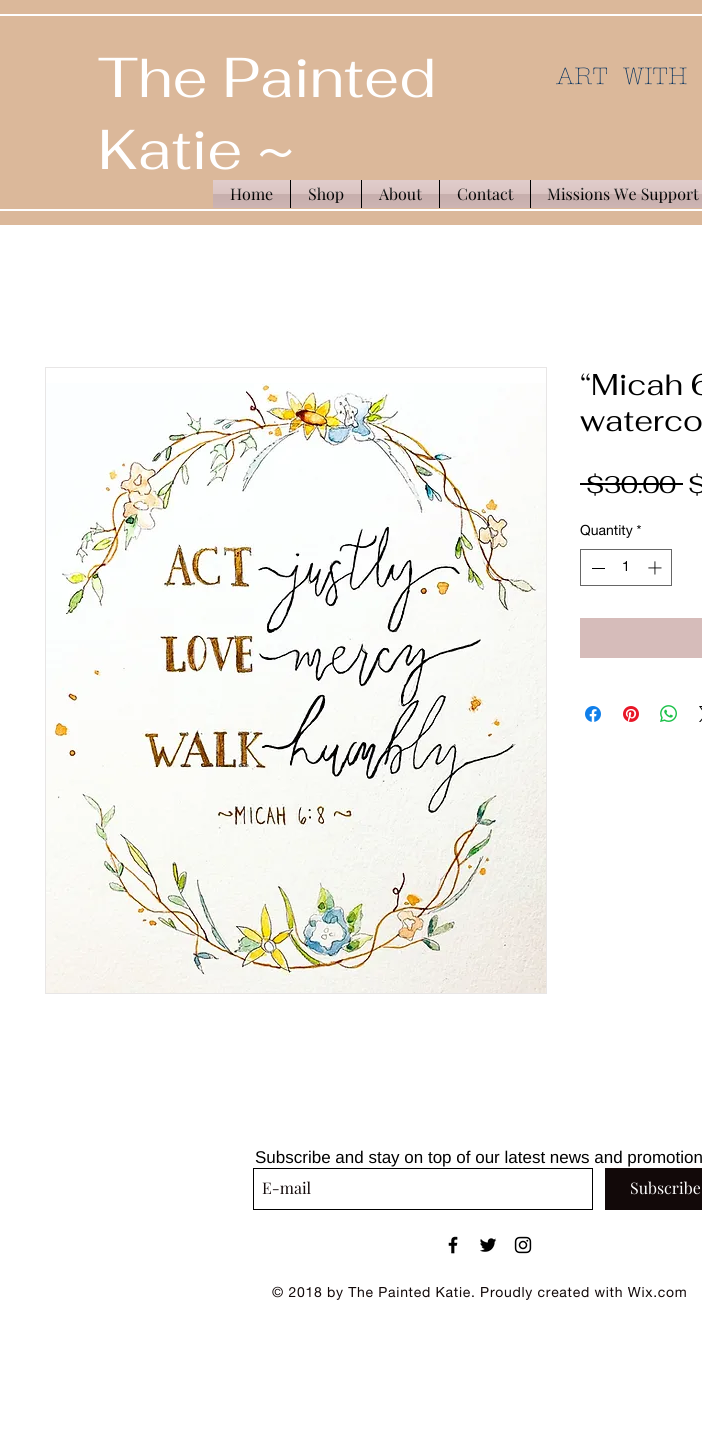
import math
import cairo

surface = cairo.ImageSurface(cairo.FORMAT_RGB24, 702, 1442)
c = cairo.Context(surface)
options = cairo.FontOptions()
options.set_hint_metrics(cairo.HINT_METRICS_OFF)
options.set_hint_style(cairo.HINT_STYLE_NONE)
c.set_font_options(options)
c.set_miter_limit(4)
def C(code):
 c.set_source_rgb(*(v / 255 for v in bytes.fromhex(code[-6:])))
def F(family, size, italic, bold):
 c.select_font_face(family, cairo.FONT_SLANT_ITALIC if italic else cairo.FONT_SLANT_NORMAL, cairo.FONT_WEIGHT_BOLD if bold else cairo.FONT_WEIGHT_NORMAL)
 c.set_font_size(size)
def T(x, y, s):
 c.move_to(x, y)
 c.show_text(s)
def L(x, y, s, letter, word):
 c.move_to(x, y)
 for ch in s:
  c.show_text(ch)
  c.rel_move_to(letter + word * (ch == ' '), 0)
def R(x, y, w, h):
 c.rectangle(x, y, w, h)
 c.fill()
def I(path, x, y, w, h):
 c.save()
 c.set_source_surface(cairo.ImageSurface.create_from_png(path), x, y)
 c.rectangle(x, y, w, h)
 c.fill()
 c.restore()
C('ffffff')
c.paint()
C('dbb89a')
R(0,0,702,225)
C('ffffff')
R(0,14,702,2)
R(0,209,702,2)
F('Fahkwang',56,0,0)
T(98,97,'The Painted')
T(98,169,'Katie ~')
F('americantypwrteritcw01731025 Light',24,0,0)
C('002e5d')
T(556,84,'ART  WITH')
C('d6bcba')
R(213,180,77,28)
F('Playfair Display',16,0,0)
C('000000')
T(230,200,'Home')
I('1.png',213,180,77,28)
C('d6bcba')
R(291,180,70,28)
C('000000')
R(290,180,1,28)
T(308,200,'Shop')
I('2.png',291,180,70,28)
C('d6bcba')
R(362,180,77,28)
C('000000')
R(361,180,1,28)
T(379,200,'About')
I('3.png',362,180,77,28)
C('d6bcba')
R(440,180,90,28)
C('000000')
R(439,180,1,28)
T(457,200,'Contact')
I('4.png',440,180,90,28)
C('d6bcba')
R(531,180,171,28)
C('000000')
R(530,180,1,28)
T(547,200,'Missions We Support')
I('5.png',531,180,171,28)
c.rectangle(45.5,367.5,501,626)
C('e8e6e6')
c.set_line_width(1)
c.stroke()
I('6.png',46,383,500,610)
F('Fahkwang',30,0,0)
C('000000')
T(580,395,'“Micah 6')
T(580,431,'waterco')
F('Fahkwang',24,0,0)
T(586,493,'$30.00')
R(580,483,103,2)
T(688,493,'$')
F('helvetica neue',14,0,0)
T(580,535,'Quantity *')
c.rectangle(580.5,549.5,91,36)
C('666666')
c.stroke()
C('000000')
R(592,568,13,1)
T(622,571,'1')
I('7.png',648,561,14,14)
C('d6bcba')
R(580,618,122,40)
I('8.png',585,706,16,16)
I('9.png',623,706,16,16)
I('10.png',660,705,17,17)
I('11.png',699,706,3,16)
F('Liberation Sans',17,0,0)
C('000000')
T(255,1163,'Subscribe and stay on top of our latest news and promotion')
c.rectangle(253.5,1168.5,339,41)
c.stroke()
F('Playfair Display',16,0,0)
C('120909')
T(262,1194,'E-mail')
R(605,1168,97,42)
C('ffffff')
T(630,1194,'Subscribe')
I('12.png',448,1236,10,18)
I('13.png',480,1238,17,14)
I('14.png',514,1236,18,18)
F('helvetica neue',14,0,0)
C('120909')
L(272,1297,'© 2018 by The Painted Katie. Proudly created with Wix.com',.7,0)
surface.write_to_png('o.png')
